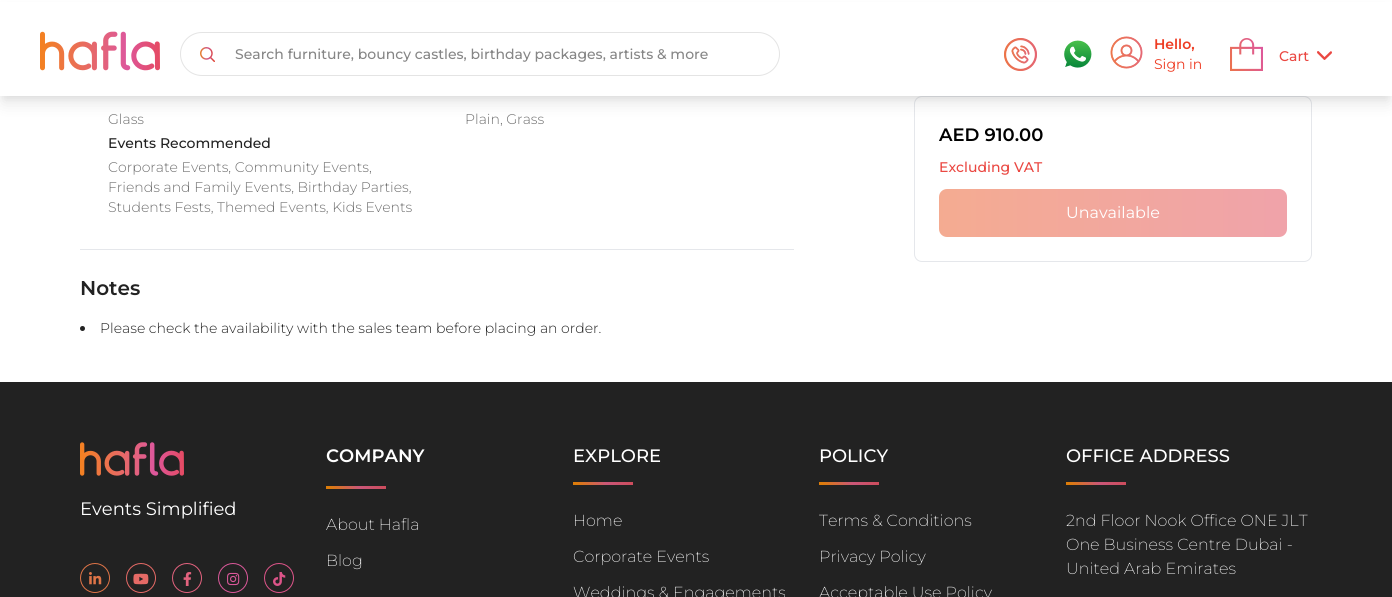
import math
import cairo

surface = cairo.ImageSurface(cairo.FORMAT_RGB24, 1392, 597)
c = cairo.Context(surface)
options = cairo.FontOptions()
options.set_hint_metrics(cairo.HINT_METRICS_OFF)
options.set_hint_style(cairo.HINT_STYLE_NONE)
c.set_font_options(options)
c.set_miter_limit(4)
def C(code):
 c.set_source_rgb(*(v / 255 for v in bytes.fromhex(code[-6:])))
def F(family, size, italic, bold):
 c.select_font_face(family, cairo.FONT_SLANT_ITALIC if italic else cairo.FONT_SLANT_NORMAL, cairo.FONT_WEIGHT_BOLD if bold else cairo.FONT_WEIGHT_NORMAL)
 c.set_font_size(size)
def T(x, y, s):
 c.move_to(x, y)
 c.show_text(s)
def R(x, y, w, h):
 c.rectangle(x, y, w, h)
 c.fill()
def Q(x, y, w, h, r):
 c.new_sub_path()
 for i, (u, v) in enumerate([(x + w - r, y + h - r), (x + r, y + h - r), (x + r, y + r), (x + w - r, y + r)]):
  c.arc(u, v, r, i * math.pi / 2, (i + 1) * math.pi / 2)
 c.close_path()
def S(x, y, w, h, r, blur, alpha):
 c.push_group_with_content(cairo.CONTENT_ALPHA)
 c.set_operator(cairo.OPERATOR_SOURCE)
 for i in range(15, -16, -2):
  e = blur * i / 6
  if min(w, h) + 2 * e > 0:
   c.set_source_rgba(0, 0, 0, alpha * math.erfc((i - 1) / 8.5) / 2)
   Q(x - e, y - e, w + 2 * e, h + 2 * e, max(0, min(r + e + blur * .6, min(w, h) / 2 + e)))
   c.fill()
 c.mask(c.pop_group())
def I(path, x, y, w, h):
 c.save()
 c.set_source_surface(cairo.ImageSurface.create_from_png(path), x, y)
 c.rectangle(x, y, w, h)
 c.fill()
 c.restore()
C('ffffff')
c.paint()
Q(914.5,96.5,397,165,7.5)
C('e5e7eb')
c.set_line_width(1)
c.stroke()
C('000000')
S(2,6,1388,92,0,3,.05)
S(3,13,1386,90,0,7.5,.1)
C('ffffff')
R(0,2,1392,94)
I('1.png',40,31,120,40)
Q(180.5,32.5,599,43,21.5)
C('e4e4e4')
c.stroke()
I('2.png',200,47,15,15)
F('Montserrat Medium',14,0,0)
C('868686')
T(235,59,'Search furniture, bouncy castles, birthday packages, artists & more')
I('3.png',1004,38,33,33)
I('4.png',1064,40,28,28)
I('5.png',1110,36,33,33)
F('Montserrat SemiBold',14,0,0)
C('ee3d24')
T(1154,49,'Hello,')
F('Montserrat',14,0,0)
T(1154,69,'Sign in')
I('6.png',1230,38,33,33)
F('Montserrat Medium',14,0,0)
C('ea4842')
T(1279,61,'Cart')
I('7.png',1317,51,15,9)
F('Montserrat Light',14,0,0)
C('717171')
T(108,124,'Glass')
T(465,124,'Plain, Grass')
F('Montserrat Medium',14,0,0)
C('222222')
T(108,148,'Events Recommended')
F('Montserrat Light',14,0,0)
C('717171')
T(108,172,'Corporate Events, Community Events,')
T(108,192,'Friends and Family Events, Birthday Parties,')
T(108,212,'Students Fests, Themed Events, Kids Events')
C('e5e7eb')
R(80,249,714,1)
F('Montserrat SemiBold',20,0,0)
C('222222')
T(80,295,'Notes')
c.new_path()
c.arc(82.5,328.5,2.5,0,2 * math.pi)
c.fill()
F('Montserrat Light',14,0,0)
T(100,333,'Please check the availability with the sales team before placing an order.')
F('Montserrat SemiBold',18,0,0)
C('000000')
T(939,141,'AED 910.00')
F('Montserrat Medium',14,0,0)
C('ea4842')
T(939,172,'Excluding VAT')
gradient = cairo.LinearGradient(626,213,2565,213)
gradient.add_color_stop_rgba(0,0.973,0.702,0.482,1)
gradient.add_color_stop_rgba(.53,0.922,0.604,0.769,1)
gradient.add_color_stop_rgba(1,0.961,0.545,0.486,1)
c.set_source(gradient)
Q(939,189,348,48,8)
c.fill()
F('Montserrat',16,0,0)
C('ffffff')
T(1066,218,'Unavailable')
C('222222')
R(0,382,1392,215)
I('8.png',80,442,104,34)
F('Montserrat',18,0,0)
C('ffffff')
T(80,515,'Events Simplified')
c.new_path()
c.arc(95,578,14.5,0,2 * math.pi)
C('df7447')
c.stroke()
I('9.png',89,572,13,13)
c.arc(141,578,14.5,0,2 * math.pi)
C('e56a66')
c.stroke()
I('10.png',133,573,16,12)
c.arc(187,578,14.5,0,2 * math.pi)
C('e2627e')
c.stroke()
I('11.png',183,572,9,14)
c.arc(233,578,14.5,0,2 * math.pi)
C('db589a')
c.stroke()
I('12.png',227,572,13,14)
c.arc(279,578,14.5,0,2 * math.pi)
C('dd5489')
c.stroke()
I('13.png',273,572,13,14)
F('Montserrat SemiBold',18,0,0)
C('ffffff')
T(326,462,'COMPANY')
gradient = cairo.LinearGradient(338,503,374,472)
gradient.add_color_stop_rgba(.07,0.863,0.486,0.039,1)
gradient.add_color_stop_rgba(.56,0.792,0.341,0.475,1)
gradient.add_color_stop_rgba(1,0.804,0.298,0.357,1)
c.set_source(gradient)
R(326,486,60,3)
F('Montserrat ExtraLight',16,0,0)
C('ffffff')
T(326,530,'About Hafla')
T(326,566,'Blog')
F('Montserrat Medium',18,0,0)
T(573,462,'EXPLORE')
gradient = cairo.LinearGradient(585,499,621,468)
gradient.add_color_stop_rgba(.07,0.863,0.486,0.039,1)
gradient.add_color_stop_rgba(.56,0.792,0.341,0.475,1)
gradient.add_color_stop_rgba(1,0.804,0.298,0.357,1)
c.set_source(gradient)
R(573,482,60,3)
F('Montserrat ExtraLight',16,0,0)
C('ffffff')
T(573,526,'Home')
T(573,562,'Corporate Events')
T(573,598,'Weddings & Engagements')
F('Montserrat Medium',18,0,0)
T(819,462,'POLICY')
gradient = cairo.LinearGradient(831,499,867,468)
gradient.add_color_stop_rgba(.07,0.863,0.486,0.039,1)
gradient.add_color_stop_rgba(.56,0.792,0.341,0.475,1)
gradient.add_color_stop_rgba(1,0.804,0.298,0.357,1)
c.set_source(gradient)
R(819,482,60,3)
F('Montserrat ExtraLight',16,0,0)
C('ffffff')
T(819,526,'Terms & Conditions')
T(819,562,'Privacy Policy')
T(819,598,'Acceptable Use Policy')
F('Montserrat Medium',18,0,0)
T(1066,462,'OFFICE ADDRESS')
gradient = cairo.LinearGradient(1078,499,1114,468)
gradient.add_color_stop_rgba(.07,0.863,0.486,0.039,1)
gradient.add_color_stop_rgba(.56,0.792,0.341,0.475,1)
gradient.add_color_stop_rgba(1,0.804,0.298,0.357,1)
c.set_source(gradient)
R(1066,482,60,3)
F('Montserrat ExtraLight',16,0,0)
C('ffffff')
T(1066,526,'2nd Floor Nook Office ONE JLT')
T(1066,550,'One Business Centre Dubai -')
T(1066,574,'United Arab Emirates')
surface.write_to_png('o.png')
